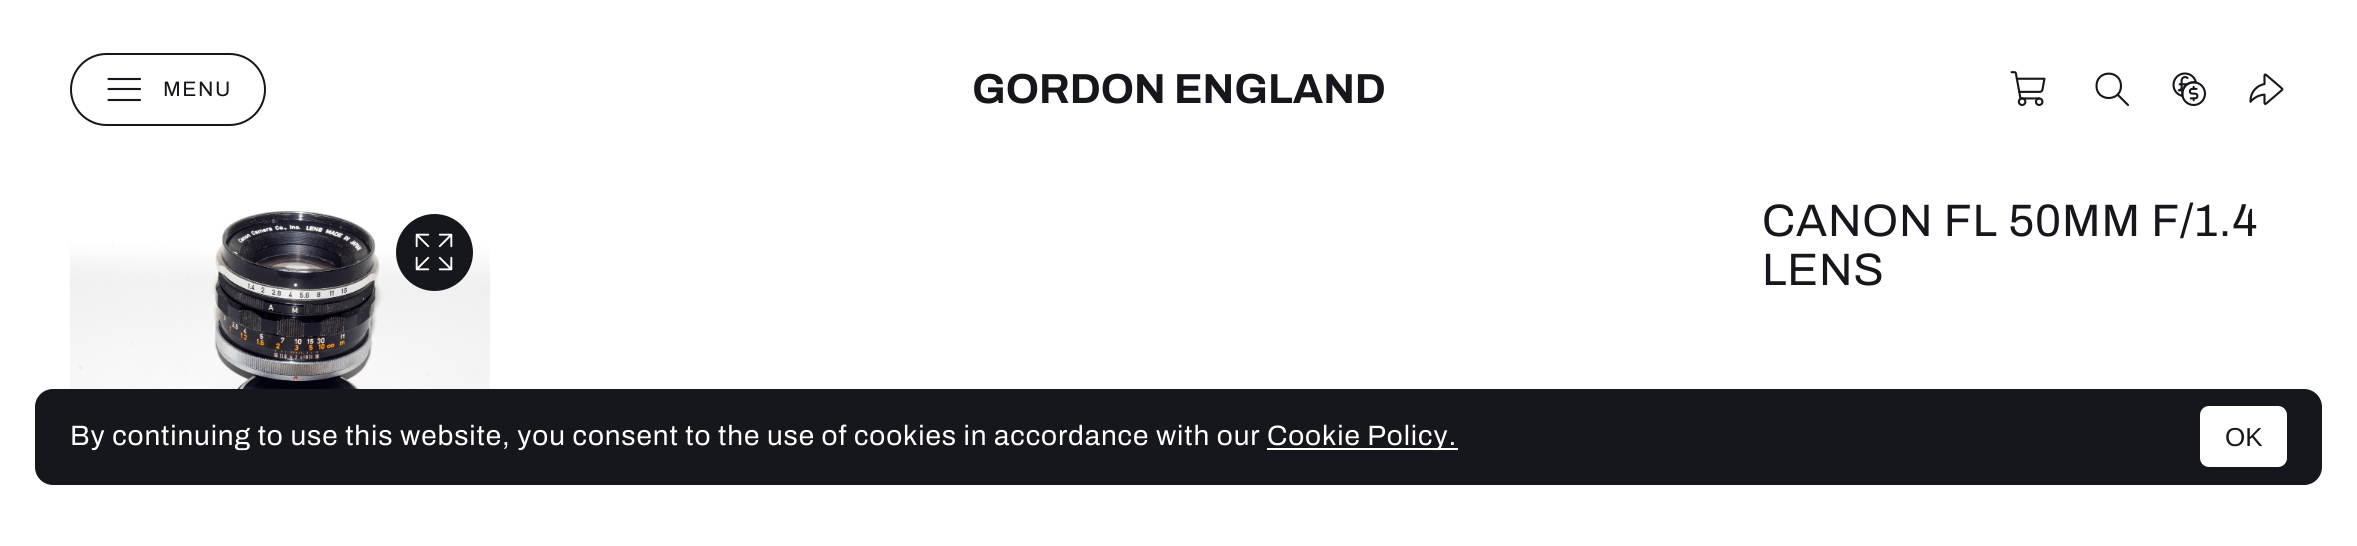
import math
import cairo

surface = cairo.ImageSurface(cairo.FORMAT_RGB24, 2357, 546)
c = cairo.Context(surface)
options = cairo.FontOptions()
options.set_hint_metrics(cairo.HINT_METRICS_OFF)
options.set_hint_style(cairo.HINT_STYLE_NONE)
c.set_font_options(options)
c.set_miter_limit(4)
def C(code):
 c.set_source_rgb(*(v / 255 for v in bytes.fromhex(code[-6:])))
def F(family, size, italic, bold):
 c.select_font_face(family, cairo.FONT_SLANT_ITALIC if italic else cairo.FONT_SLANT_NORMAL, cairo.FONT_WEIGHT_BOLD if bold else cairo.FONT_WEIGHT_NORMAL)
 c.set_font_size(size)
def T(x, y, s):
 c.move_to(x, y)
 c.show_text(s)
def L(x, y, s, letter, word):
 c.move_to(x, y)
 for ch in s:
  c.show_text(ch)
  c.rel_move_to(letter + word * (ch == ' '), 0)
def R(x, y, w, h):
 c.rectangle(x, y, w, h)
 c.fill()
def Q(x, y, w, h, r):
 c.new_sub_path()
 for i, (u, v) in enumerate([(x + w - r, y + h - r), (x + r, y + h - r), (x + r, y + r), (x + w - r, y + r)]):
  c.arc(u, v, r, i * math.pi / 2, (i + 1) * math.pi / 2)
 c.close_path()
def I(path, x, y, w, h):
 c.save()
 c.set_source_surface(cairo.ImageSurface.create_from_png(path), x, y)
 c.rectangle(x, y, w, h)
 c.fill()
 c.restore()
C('ffffff')
c.paint()
Q(71,54,194,71,35.5)
C('16161d')
c.stroke()
c.new_path()
c.move_to(108.5,89)
c.line_to(140,89)
c.move_to(108.5,79)
c.line_to(140,79)
c.move_to(108.5,100)
c.line_to(140,100)
c.set_line_width(2.1)
c.set_line_cap(cairo.LINE_CAP_ROUND)
c.set_line_join(cairo.LINE_JOIN_ROUND)
c.stroke()
F('Archivo',21,0,0)
L(163,96,'MENU',1.5,0)
F('Archivo',42,0,1)
T(972,103,'GORDON ENGLAND')
I('1.png',2010,71,36,35)
c.new_path()
c.move_to(2128,105)
c.line_to(2117.5,94.5)
c.move_to(2121,86)
c.curve_to(2121,102,2096.5,102,2096.5,86)
c.curve_to(2096.5,69.5,2121,69.5,2121,86)
c.close_path()
c.stroke()
I('2.png',2172,72,35,35)
I('3.png',2249,73,35,32)
I('4.png',70,211,420,178)
c.arc(434.5,252.5,38.5,0,2 * math.pi)
c.fill()
I('5.png',415,233,38,38)
F('Archivo',45.5,0,0)
L(1762,236,'CANON FL 50MM F/1.4',.88,0)
L(1762,285,'LENS',.88,0)
Q(35,389,2287,96,18)
c.fill()
F('Archivo',28,0,0)
C('ffffff')
L(70,445,'By continuing to use this website, you consent to the use of cookies in accordance with our',.88,0)
R(1267,448,191,2)
L(1267,445,'Cookie Policy.',.88,0)
Q(2200,406,87,61,9)
c.fill()
F('Liberation Sans',26,0,0)
C('16161d')
T(2225,446,'OK')
surface.write_to_png('o.png')
